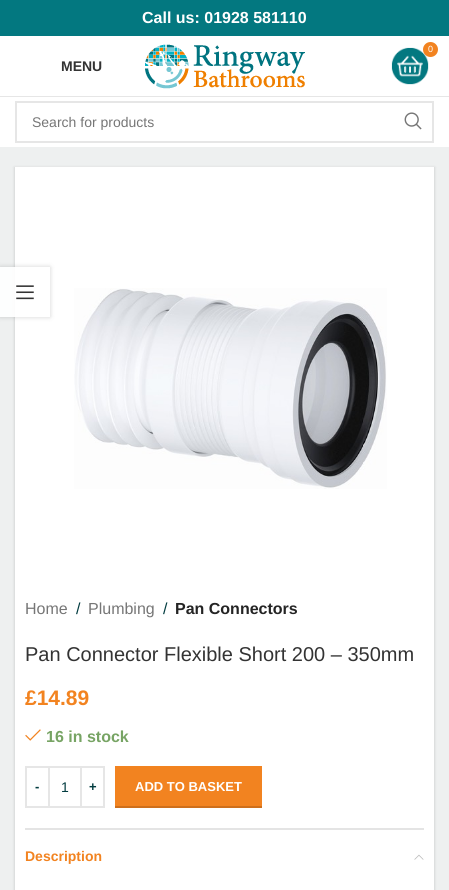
import math
import cairo

surface = cairo.ImageSurface(cairo.FORMAT_RGB24, 449, 890)
c = cairo.Context(surface)
options = cairo.FontOptions()
options.set_hint_metrics(cairo.HINT_METRICS_OFF)
options.set_hint_style(cairo.HINT_STYLE_NONE)
c.set_font_options(options)
c.set_miter_limit(4)
def C(code):
 c.set_source_rgb(*(v / 255 for v in bytes.fromhex(code[-6:])))
def F(family, size, italic, bold):
 c.select_font_face(family, cairo.FONT_SLANT_ITALIC if italic else cairo.FONT_SLANT_NORMAL, cairo.FONT_WEIGHT_BOLD if bold else cairo.FONT_WEIGHT_NORMAL)
 c.set_font_size(size)
def T(x, y, s):
 c.move_to(x, y)
 c.show_text(s)
def R(x, y, w, h):
 c.rectangle(x, y, w, h)
 c.fill()
def Q(x, y, w, h, r):
 c.new_sub_path()
 for i, (u, v) in enumerate([(x + w - r, y + h - r), (x + r, y + h - r), (x + r, y + r), (x + w - r, y + r)]):
  c.arc(u, v, r, i * math.pi / 2, (i + 1) * math.pi / 2)
 c.close_path()
def S(x, y, w, h, r, blur, alpha):
 c.push_group_with_content(cairo.CONTENT_ALPHA)
 c.set_operator(cairo.OPERATOR_SOURCE)
 for i in range(15, -16, -2):
  e = blur * i / 6
  if min(w, h) + 2 * e > 0:
   c.set_source_rgba(0, 0, 0, alpha * math.erfc((i - 1) / 8.5) / 2)
   Q(x - e, y - e, w + 2 * e, h + 2 * e, max(0, min(r + e + blur * .6, min(w, h) / 2 + e)))
   c.fill()
 c.mask(c.pop_group())
def I(path, x, y, w, h):
 c.save()
 c.set_source_surface(cairo.ImageSurface.create_from_png(path), x, y)
 c.rectangle(x, y, w, h)
 c.fill()
 c.restore()
C('ffffff')
c.paint()
C('037880')
R(0,0,449,36)
F('Liberation Sans',16,0,1)
C('ffffff')
T(142,23,'Call us: 01928 581110')
C('e6e6e6')
R(0,96,449,1)
I('1.png',145,44,160,45)
I('2.png',391,47,38,38)
C('f28320')
c.arc(430.5,49.5,7.5,0,2 * math.pi)
c.fill()
F('Liberation Sans',9,0,0)
C('ffffff')
T(428,52,'0')
F('Liberation Sans',14,0,1)
C('333333')
T(61,71,'MENU')
c.rectangle(16,102,417,40)
C('e6e6e6')
c.stroke()
F('Liberation Sans',14,0,0)
C('767676')
T(32,127,'Search for products')
I('3.png',404,112,18,18)
C('eef0f0')
R(0,147,449,743)
C('000000')
S(14,167,421,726,0,1,.1)
C('ffffff')
R(15,167,419,723)
I('4.png',74,288,313,201)
F('Liberation Sans',16,0,0)
C('767676')
T(25,614,'Home')
C('023c40')
T(76,614,'/')
C('767676')
T(88,614,'Plumbing')
C('023c40')
T(163,614,'/')
F('Liberation Sans',16,0,1)
C('242424')
T(175,614,'Pan Connectors')
F('Liberation Sans',20,0,0)
C('333333')
T(25,661,'Pan Connector Flexible Short 200 – 350mm')
F('Liberation Sans',21,0,1)
C('f28320')
T(25,705,'£14.89')
I('5.png',25,729,16,12)
F('Liberation Sans',16,0,1)
C('77a464')
T(46,742,'16 in stock')
c.rectangle(26,767,23,40)
C('e6e6e6')
c.stroke()
F('Liberation Sans',13,0,1)
C('023c40')
T(35,791,'-')
C('e6e6e6')
R(50,766,30,2)
R(50,806,30,2)
F('Liberation Sans',14,0,0)
C('023c40')
T(61,792,'1')
c.rectangle(81,767,23,40)
C('e6e6e6')
c.stroke()
F('Liberation Sans',13,0,1)
C('023c40')
T(89,791,'+')
C('f28320')
R(115,766,147,40)
C('ce6f1b')
R(115,806,147,2)
C('ffffff')
T(135,791,'ADD TO BASKET')
C('e4e4e4')
R(25,828,399,2)
F('Liberation Sans',14,0,1)
C('f28320')
T(25,861,'Description')
I('6.png',414,854,10,6)
c.save()
c.set_fill_rule(cairo.FILL_RULE_EVEN_ODD)
c.new_path()
c.move_to(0,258)
c.line_to(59,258)
c.line_to(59,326)
c.line_to(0,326)
c.close_path()
c.move_to(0,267)
c.line_to(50,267)
c.line_to(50,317)
c.line_to(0,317)
c.close_path()
c.clip()
C('000000')
S(0,267,50,50,0,2.5,.17)
c.restore()
c.set_source_rgba(1,1,1,0.9)
R(0,267,15,50)
I('7.png',16,285,18,15)
surface.write_to_png('o.png')
